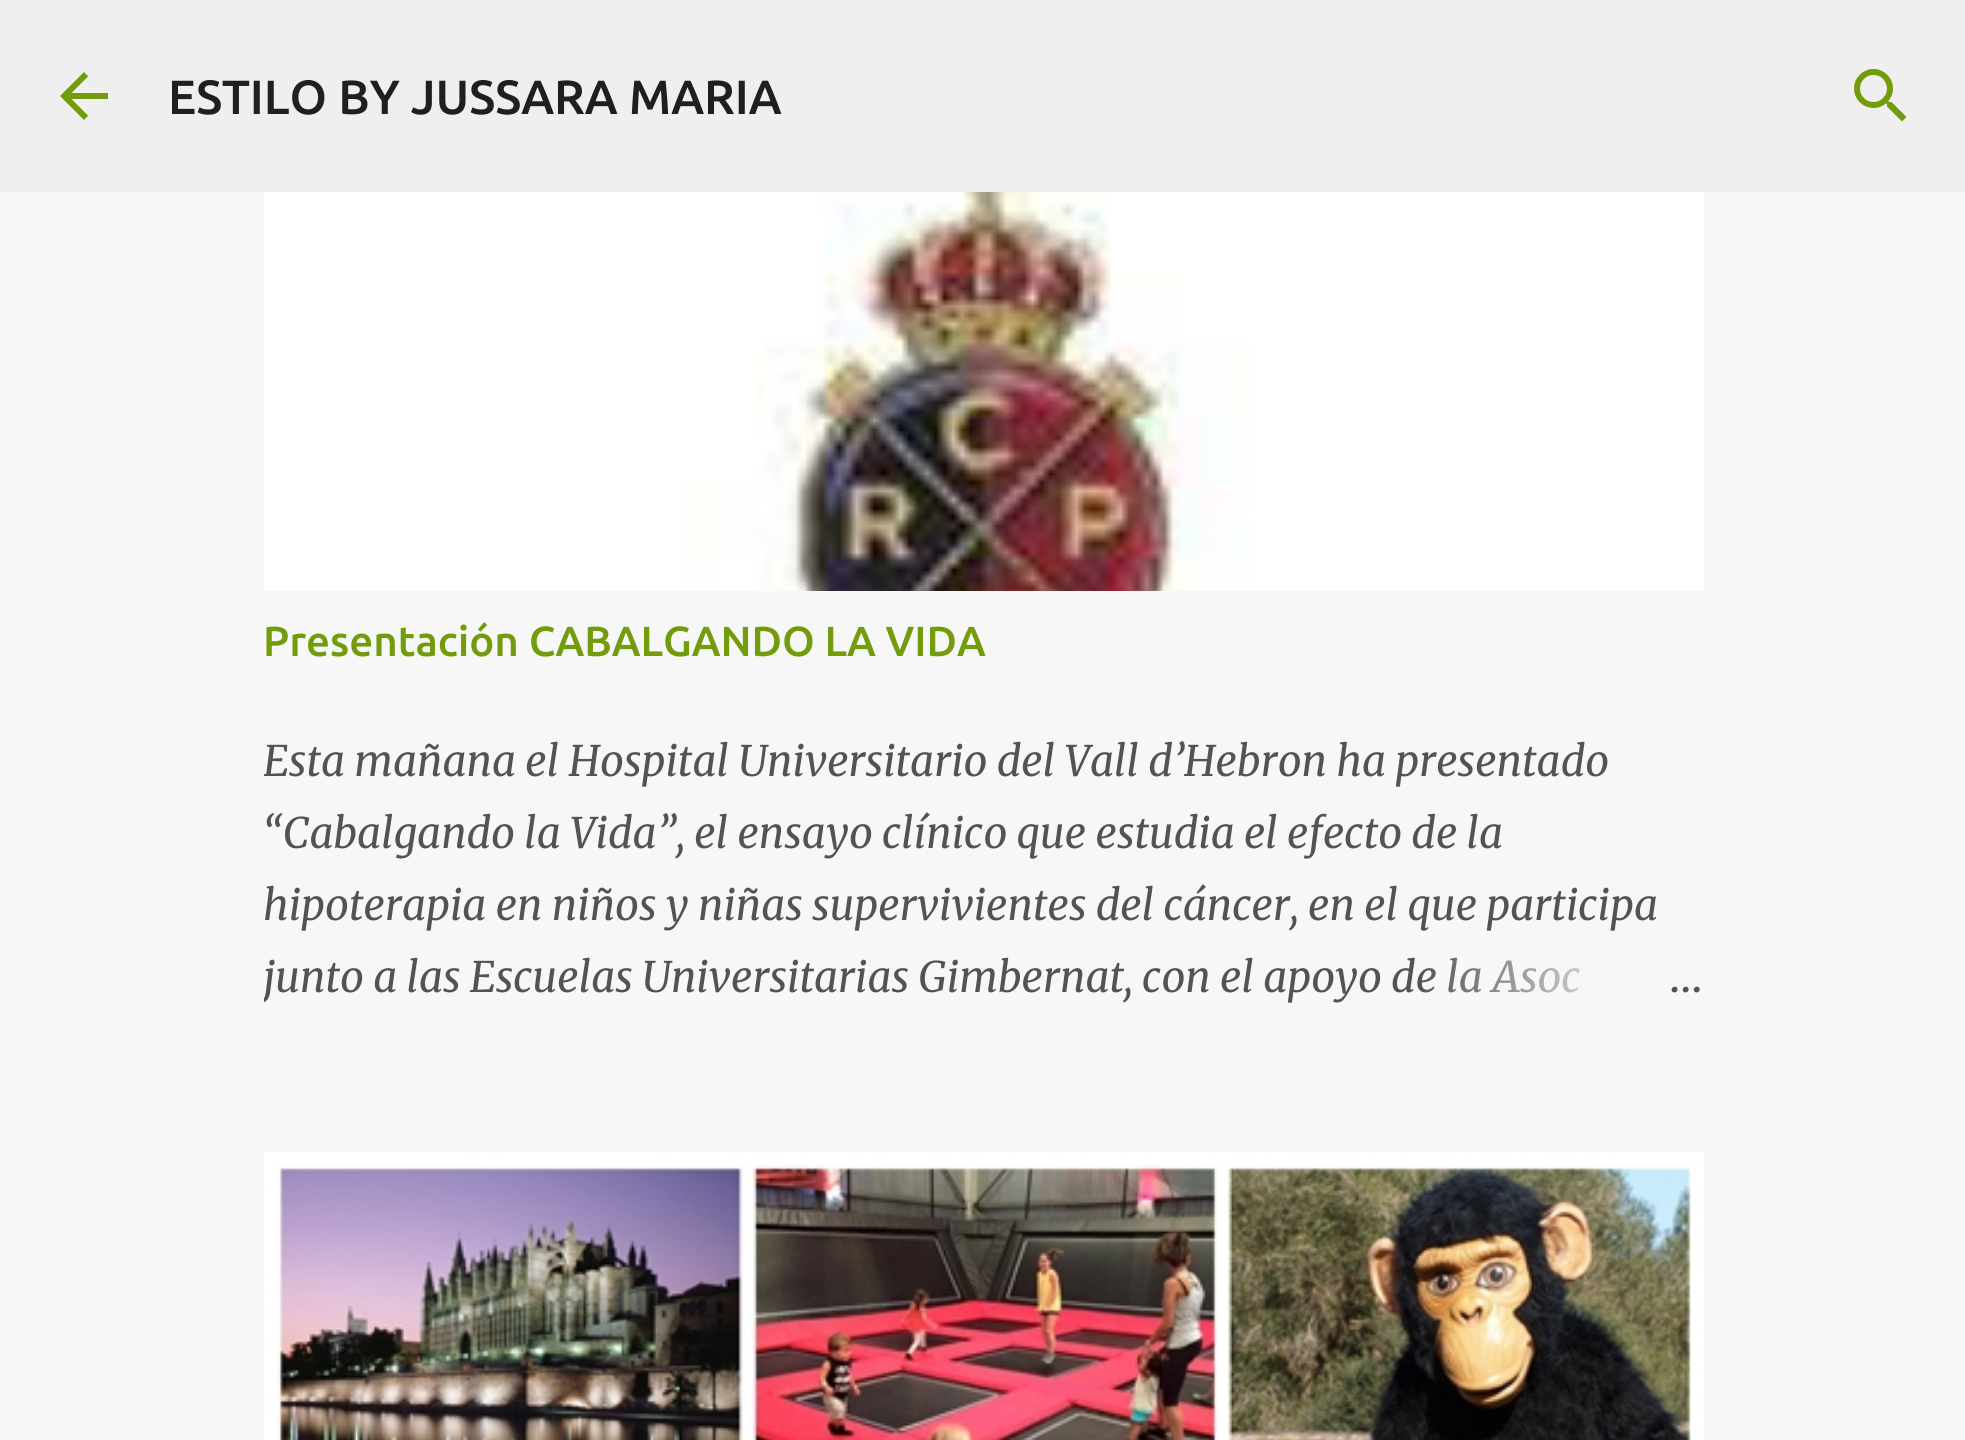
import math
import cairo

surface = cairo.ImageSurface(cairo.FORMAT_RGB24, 1965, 1440)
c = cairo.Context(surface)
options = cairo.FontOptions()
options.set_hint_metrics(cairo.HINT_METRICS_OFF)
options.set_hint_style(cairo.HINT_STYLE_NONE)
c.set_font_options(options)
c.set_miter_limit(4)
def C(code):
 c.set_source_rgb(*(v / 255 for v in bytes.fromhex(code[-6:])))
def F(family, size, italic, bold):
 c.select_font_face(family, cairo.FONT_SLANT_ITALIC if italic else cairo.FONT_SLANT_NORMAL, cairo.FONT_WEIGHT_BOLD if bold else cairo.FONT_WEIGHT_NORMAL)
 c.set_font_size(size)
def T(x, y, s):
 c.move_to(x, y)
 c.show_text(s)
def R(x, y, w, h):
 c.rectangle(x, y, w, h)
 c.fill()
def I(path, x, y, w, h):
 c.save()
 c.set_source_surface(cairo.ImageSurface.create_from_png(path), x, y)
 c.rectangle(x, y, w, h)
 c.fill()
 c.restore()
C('f7f7f7')
c.paint()
C('efefef')
R(0,0,1965,192)
I('1.png',60,72,48,48)
F('Ubuntu Medium',48,0,0)
C('1f1f1f')
T(168,114,'ESTILO BY JUSSARA MARIA')
I('2.png',1854,69,53,53)
I('3.png',264,192,1440,399)
F('Ubuntu Medium',42,0,0)
C('729c0b')
T(263,656,'Presentación CABALGANDO LA VIDA')
c.save()
c.rectangle(264,726,1440,288)
c.clip()
F('Merriweather',42,1,0)
C('535353')
T(263,776,'Esta mañana el Hospital Universitario del Vall d’Hebron ha presentado')
c.restore()
F('Merriweather',42,1,0)
C('535353')
T(263,848,'“Cabalgando la Vida”, el ensayo clínico que estudia el efecto de la')
T(263,920,'hipoterapia en niños y niñas supervivientes del cáncer, en el que participa')
c.save()
c.rectangle(264,726,1440,288)
c.clip()
T(263,992,'junto a las Escuelas Universitarias Gimbernat, con el apoyo de la Asoc')
c.restore()
gradient = cairo.LinearGradient(1704,978,1416,978)
gradient.add_color_stop_rgba(0,0.969,0.969,0.969,1)
gradient.add_color_stop_rgba(.2,0.969,0.969,0.969,1)
gradient.add_color_stop_rgba(1,0.969,0.969,0.969,0)
c.set_source(gradient)
R(1421,957,159,36)
F('Merriweather Light',42,0,0)
C('535353')
T(1669,992,'…')
I('4.png',264,1152,1440,288)
surface.write_to_png('o.png')
